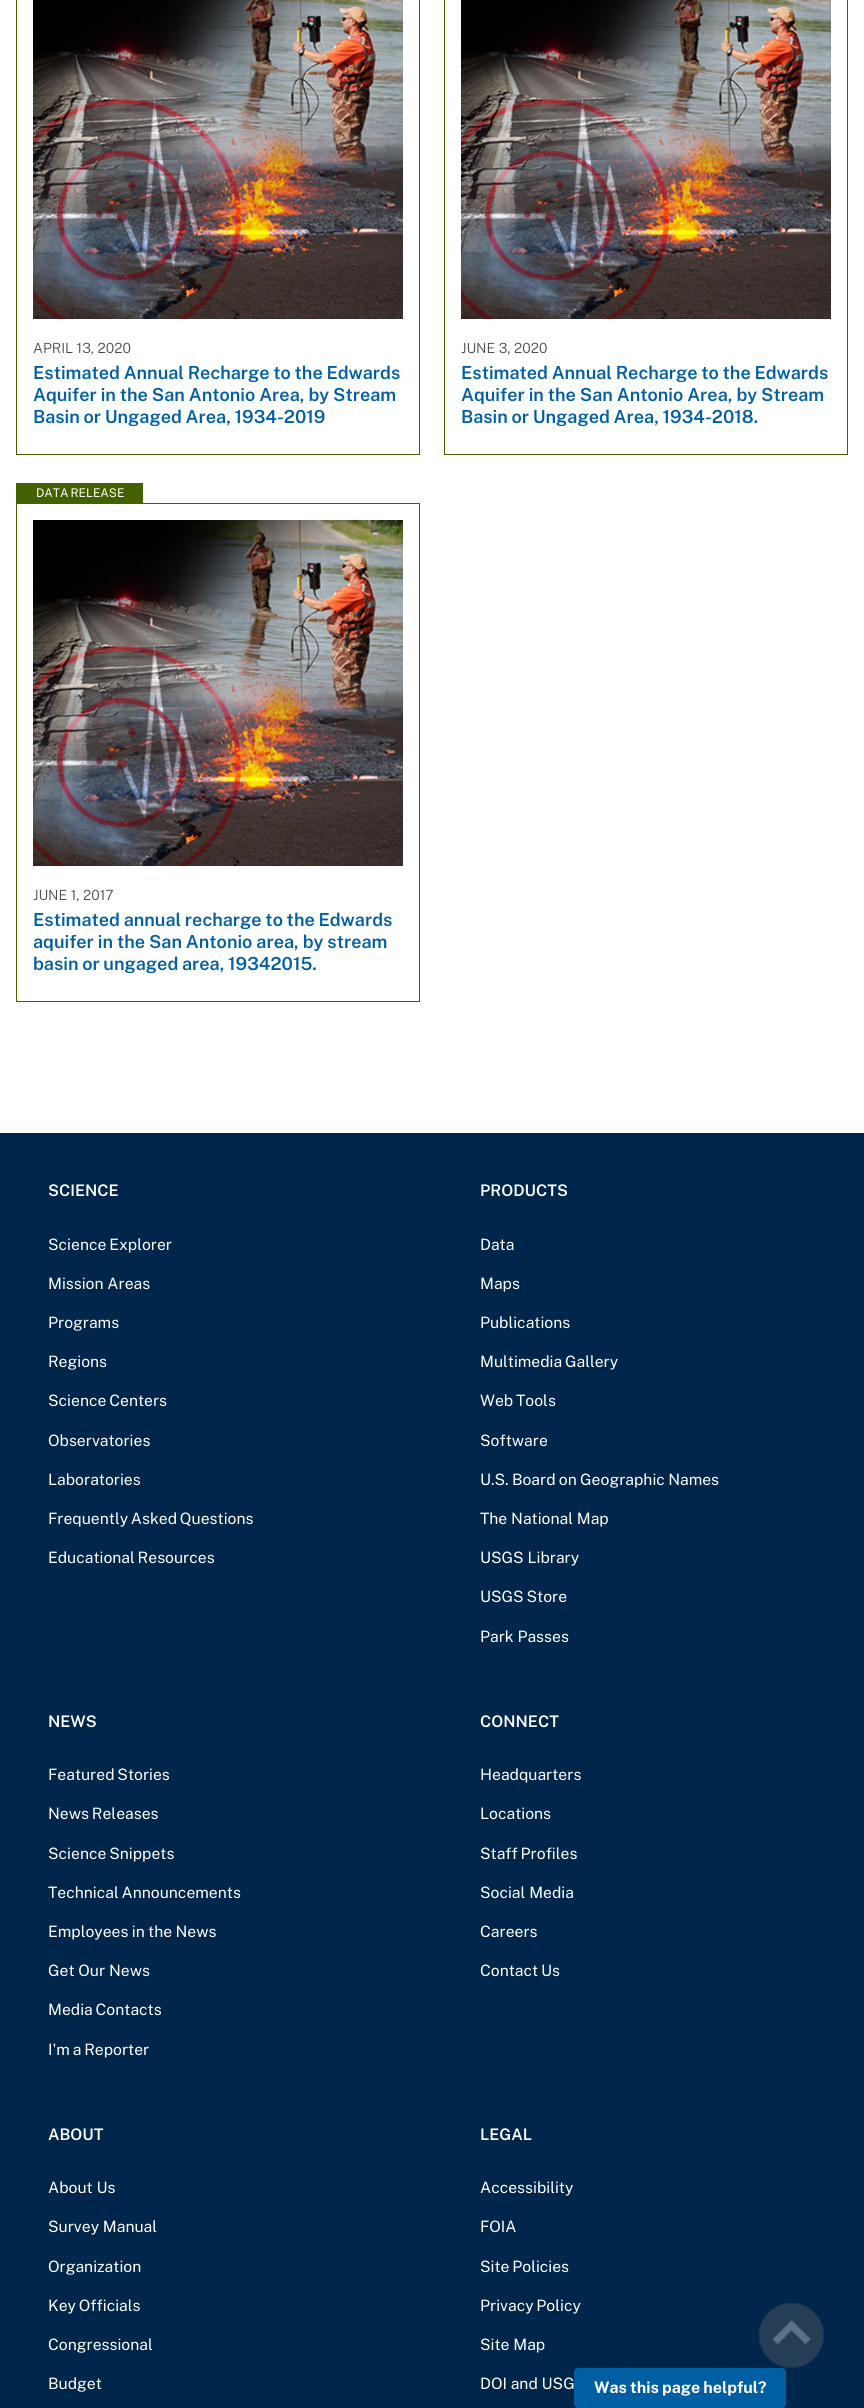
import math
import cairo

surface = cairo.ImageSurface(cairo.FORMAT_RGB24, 864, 2408)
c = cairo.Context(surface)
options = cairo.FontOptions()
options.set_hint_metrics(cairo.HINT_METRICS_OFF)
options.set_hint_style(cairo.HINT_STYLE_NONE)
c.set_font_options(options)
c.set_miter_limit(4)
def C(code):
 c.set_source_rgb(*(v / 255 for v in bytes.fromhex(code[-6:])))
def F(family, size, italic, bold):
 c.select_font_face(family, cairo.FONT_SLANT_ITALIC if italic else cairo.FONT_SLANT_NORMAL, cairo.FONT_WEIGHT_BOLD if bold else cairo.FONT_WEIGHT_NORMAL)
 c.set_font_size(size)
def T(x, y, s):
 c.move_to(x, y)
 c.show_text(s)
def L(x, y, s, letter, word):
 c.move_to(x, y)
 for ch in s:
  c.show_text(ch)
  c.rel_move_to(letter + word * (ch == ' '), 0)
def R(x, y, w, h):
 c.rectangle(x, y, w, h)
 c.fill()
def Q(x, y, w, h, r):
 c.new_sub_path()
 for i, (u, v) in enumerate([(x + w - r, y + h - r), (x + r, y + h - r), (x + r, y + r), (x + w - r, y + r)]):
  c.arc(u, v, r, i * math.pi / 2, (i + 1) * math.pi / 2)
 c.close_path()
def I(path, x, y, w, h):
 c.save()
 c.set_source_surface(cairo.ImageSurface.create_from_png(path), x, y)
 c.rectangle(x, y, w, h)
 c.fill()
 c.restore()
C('ffffff')
c.paint()
c.rectangle(16.5,-.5,403,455)
C('446100')
c.set_line_width(1)
c.stroke()
I('1.png',33,0,370,319)
F('Public Sans Light',14,0,0)
C('4d4d4d')
T(33,353,'APRIL 13, 2020')
F('Public Sans SemiBold',18,0,0)
C('005ea2')
L(33,379,'Estimated Annual Recharge to the Edwards',0,-.5)
L(33,401,'Aquifer in the San Antonio Area, by Stream',0,-.25)
L(33,423,'Basin or Ungaged Area, 1934-2019',0,-.5)
c.rectangle(444.5,-.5,403,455)
C('446100')
c.stroke()
I('1.png',461,0,370,319)
F('Public Sans Light',14,0,0)
C('4d4d4d')
T(461,353,'JUNE 3, 2020')
F('Public Sans SemiBold',18,0,0)
C('005ea2')
L(461,379,'Estimated Annual Recharge to the Edwards',0,-.5)
L(461,401,'Aquifer in the San Antonio Area, by Stream',0,-.25)
L(461,423,'Basin or Ungaged Area, 1934-2018.',0,-.5)
C('446100')
R(16,483,127,20)
F('Public Sans',12,0,0)
C('ffffff')
L(36,497,'DATA RELEASE',0,-1)
c.rectangle(16.5,503.5,403,498)
C('446100')
c.stroke()
I('2.png',33,520,370,346)
F('Public Sans Light',14,0,0)
C('4d4d4d')
T(33,900,'JUNE 1, 2017')
F('Public Sans SemiBold',18,0,0)
C('005ea2')
L(33,926,'Estimated annual recharge to the Edwards',0,-.5)
L(33,948,'aquifer in the San Antonio area, by stream',0,-.25)
L(33,970,'basin or ungaged area, 19342015.',0,-.5)
C('00264c')
R(0,1133,864,1275)
F('Public Sans SemiBold',16,0,0)
C('ffffff')
T(48,1196,'SCIENCE')
F('Public Sans',15.7,0,0)
L(48,1250,'Science Explorer',0,-1)
T(48,1289,'Mission Areas')
T(48,1328,'Programs')
T(48,1367,'Regions')
L(48,1406,'Science Centers',0,-1)
T(48,1446,'Observatories')
T(48,1485,'Laboratories')
L(48,1524,'Frequently Asked Questions',0,-1)
L(48,1563,'Educational Resources',0,-1)
F('Public Sans SemiBold',16,0,0)
T(480,1196,'PRODUCTS')
F('Public Sans',15.7,0,0)
T(480,1250,'Data')
T(480,1289,'Maps')
T(480,1328,'Publications')
L(480,1367,'Multimedia Gallery',0,-1)
L(480,1406,'Web Tools',0,-1)
T(480,1446,'Software')
L(480,1485,'U.S. Board on Geographic Names',0,-.5)
T(480,1524,'The National Map')
T(480,1563,'USGS Library')
L(480,1602,'USGS Store',0,-1)
T(480,1642,'Park Passes')
F('Public Sans SemiBold',16,0,0)
T(48,1727,'NEWS')
F('Public Sans',15.7,0,0)
L(48,1780,'Featured Stories',0,-1)
L(48,1819,'News Releases',0,-1)
L(48,1859,'Science Snippets',0,-1)
L(48,1898,'Technical Announcements',0,-1)
L(48,1937,'Employees in the News',0,-.5)
T(48,1976,'Get Our News')
L(48,2015,'Media Contacts',0,-1)
L(48,2055,'I\'m a Reporter',0,-1)
F('Public Sans SemiBold',16,0,0)
T(480,1727,'CONNECT')
F('Public Sans',15.7,0,0)
T(480,1780,'Headquarters')
T(480,1819,'Locations')
L(480,1859,'Staff Profiles',0,-1)
T(480,1898,'Social Media')
T(480,1937,'Careers')
L(480,1976,'Contact Us',0,-1)
F('Public Sans SemiBold',16,0,0)
T(48,2140,'ABOUT')
F('Public Sans',15.7,0,0)
T(48,2193,'About Us')
T(48,2232,'Survey Manual')
T(48,2272,'Organization')
L(48,2311,'Key Officials',0,-1)
T(48,2350,'Congressional')
T(48,2389,'Budget')
F('Public Sans SemiBold',16,0,0)
T(480,2140,'LEGAL')
F('Public Sans',15.7,0,0)
T(480,2193,'Accessibility')
T(480,2232,'FOIA')
L(480,2272,'Site Policies',0,-1)
L(480,2311,'Privacy Policy',0,-1)
T(480,2350,'Site Map')
T(480,2389,'DOI and USG')
I('3.png',759,2303,65,65)
C('005ea2')
Q(574,2368,212,40,4)
c.fill()
F('Public Sans',16,0,1)
C('ffffff')
L(594,2393,'Was this page helpful?',0,-.5)
surface.write_to_png('o.png')
